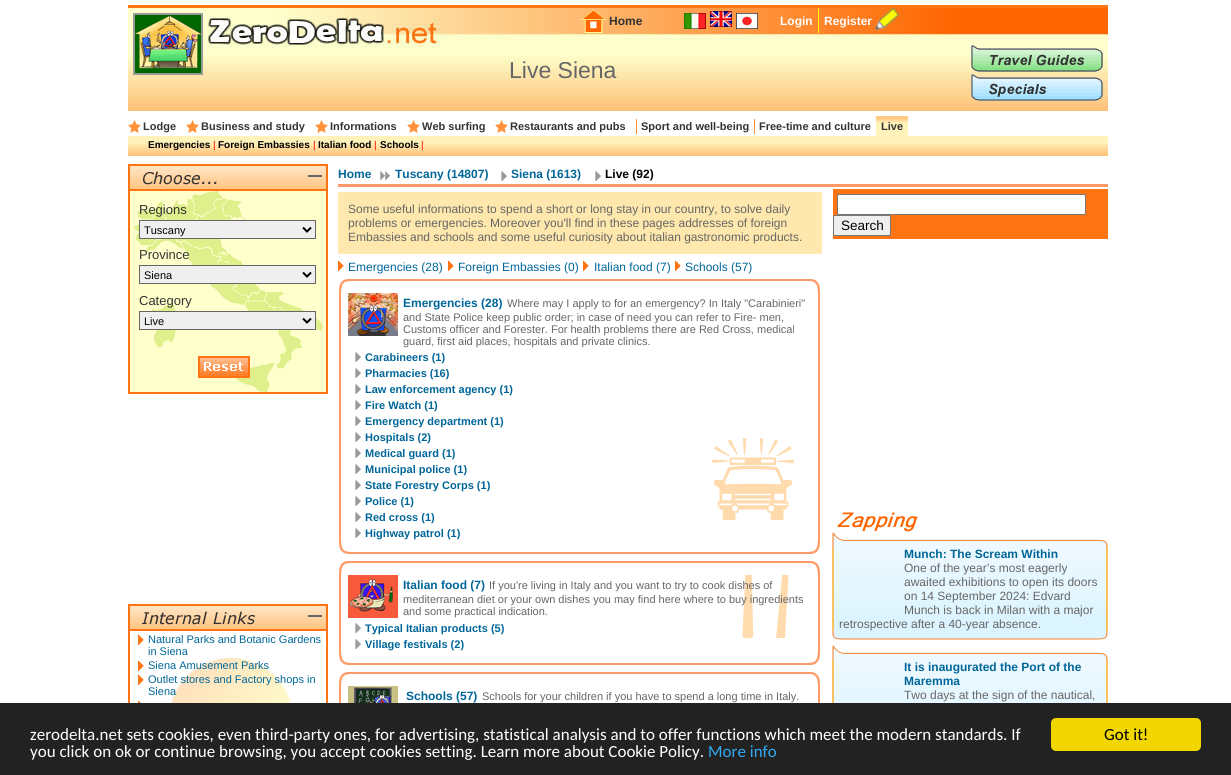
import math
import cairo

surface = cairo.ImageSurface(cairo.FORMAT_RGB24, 1231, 775)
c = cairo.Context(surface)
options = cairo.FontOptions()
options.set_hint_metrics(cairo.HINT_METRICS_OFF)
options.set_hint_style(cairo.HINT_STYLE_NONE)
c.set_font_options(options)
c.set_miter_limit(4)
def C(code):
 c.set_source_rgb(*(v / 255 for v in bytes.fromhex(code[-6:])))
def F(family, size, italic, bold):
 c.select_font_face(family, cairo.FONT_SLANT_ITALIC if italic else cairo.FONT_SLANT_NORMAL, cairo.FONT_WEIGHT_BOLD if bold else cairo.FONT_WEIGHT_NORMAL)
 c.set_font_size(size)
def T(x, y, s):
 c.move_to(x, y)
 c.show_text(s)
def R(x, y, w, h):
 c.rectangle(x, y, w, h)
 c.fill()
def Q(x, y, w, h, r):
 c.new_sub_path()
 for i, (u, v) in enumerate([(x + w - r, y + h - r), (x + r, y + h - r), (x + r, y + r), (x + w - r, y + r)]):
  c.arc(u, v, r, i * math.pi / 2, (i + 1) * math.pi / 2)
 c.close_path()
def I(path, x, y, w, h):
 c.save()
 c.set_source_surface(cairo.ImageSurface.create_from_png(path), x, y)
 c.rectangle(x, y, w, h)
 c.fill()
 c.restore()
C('ffffff')
c.paint()
I('1.png',128,8,980,103)
C('ff7513')
R(128,5,980,3)
I('2.png',133,13,70,62)
I('3.png',581,9,25,24)
F('Liberation Sans',12,0,1)
C('333333')
T(609,25,'Home')
I('4.png',684,13,22,16)
I('5.png',710,11,22,16)
I('6.png',736,13,22,16)
C('ffffff')
T(780,25,'Login')
C('ffff00')
R(818,8,1,25)
C('ffffff')
T(824,25,'Register')
F('Liberation Sans',23,0,0)
C('666666')
T(509,78,'Live Siena')
I('7.png',971,45,132,27)
I('8.png',971,74,132,27)
I('9.png',128,120,13,13)
F('Liberation Sans',11,0,1)
C('333333')
T(143,130,'Lodge')
I('9.png',186,120,13,13)
T(201,130,'Business and study')
I('9.png',315,120,13,13)
T(330,130,'Informations')
I('9.png',407,120,13,13)
T(422,130,'Web surfing')
I('9.png',495,120,13,13)
T(510,130,'Restaurants and pubs')
C('ff923a')
R(636,119,1,15)
C('333333')
T(641,130,'Sport and well-being')
C('ff923a')
R(754,119,1,15)
C('333333')
T(759,130,'Free-time and culture')
I('10.png',876,116,32,20)
T(881,130,'Live')
I('11.png',128,136,980,20)
F('Liberation Sans',10,0,1)
C('000000')
T(148,148,'Emergencies')
F('Liberation Sans',10,0,0)
C('ff0000')
T(213,148,'|')
F('Liberation Sans',10,0,1)
C('000000')
T(218,148,'Foreign Embassies')
F('Liberation Sans',10,0,0)
C('ff0000')
T(313,148,'|')
F('Liberation Sans',10,0,1)
C('000000')
T(318,148,'Italian food')
F('Liberation Sans',10,0,0)
C('ff0000')
T(374,148,'|')
F('Liberation Sans',10,0,1)
C('000000')
T(380,148,'Schools')
F('Liberation Sans',10,0,0)
C('ff0000')
T(421,148,'|')
I('12.png',128,164,200,27)
I('13.png',143,171,74,14)
C('666666')
R(308,175,14,2)
C('ffffcc')
R(130,191,196,201)
I('14.png',134,191,189,201)
C('ff7413')
R(326,191,2,201)
R(128,191,2,201)
F('Liberation Sans',13,0,0)
C('333333')
T(139,214,'Regions')
C('efefef')
c.rectangle(139.5,220.5,176,18)
c.fill_preserve()
C('666666')
c.set_line_width(1)
c.stroke()
c.new_path()
c.move_to(303,227.5)
c.line_to(307,231.5)
c.line_to(311,227.5)
C('000000')
c.set_line_width(2)
c.stroke()
F('Liberation Sans',11,0,0)
T(144,234,'Tuscany')
F('Liberation Sans',13,0,0)
C('333333')
T(139,259,'Province')
C('efefef')
c.rectangle(139.5,265.5,176,18)
c.fill_preserve()
C('666666')
c.set_line_width(1)
c.stroke()
c.new_path()
c.move_to(303,272.5)
c.line_to(307,276.5)
c.line_to(311,272.5)
C('000000')
c.set_line_width(2)
c.stroke()
F('Liberation Sans',11,0,0)
T(144,279,'Siena')
F('Liberation Sans',13,0,0)
C('333333')
T(139,305,'Category')
C('efefef')
c.rectangle(139.5,311.5,176,18)
c.fill_preserve()
C('666666')
c.set_line_width(1)
c.stroke()
c.new_path()
c.move_to(303,318.5)
c.line_to(307,322.5)
c.line_to(311,318.5)
C('000000')
c.set_line_width(2)
c.stroke()
F('Liberation Sans',11,0,0)
T(144,325,'Live')
I('15.png',198,356,52,22)
C('ff7413')
R(128,392,200,2)
I('12.png',128,604,200,27)
I('16.png',142,611,113,14)
C('666666')
R(308,615,14,2)
C('ff7413')
R(326,631,2,72)
R(128,631,2,72)
I('17.png',169,658,124,45)
I('18.png',138,634,6,11)
C('006699')
T(148,643,'Natural Parks and Botanic Gardens')
T(148,655,'in Siena')
I('18.png',138,660,6,11)
T(148,669,'Siena Amusement Parks')
I('18.png',138,674,6,11)
T(148,683,'Outlet stores and Factory shops in')
T(148,695,'Siena')
I('19.png',138,700,6,3)
F('Liberation Sans',12,0,1)
T(338,178,'Home')
I('20.png',380,171,10,10)
T(395,178,'Tuscany (14807)')
I('21.png',501,171,6,10)
T(511,178,'Siena (1613)')
I('21.png',595,171,6,10)
C('000000')
T(605,178,'Live (92)')
C('ff9966')
R(338,184,770,3)
C('ffe8ad')
R(338,192,484,62)
F('Liberation Sans',12,0,0)
C('666666')
T(348,213,'Some useful informations to spend a short or long stay in our country, to solve daily')
T(348,227,'problems or emergencies. Moreover you\'ll find in these pages addresses of foreign')
T(348,241,'Embassies and schools and some useful curiosity about italian gastronomic products.')
I('18.png',338,260,6,11)
C('006699')
T(348,271,'Emergencies (28)')
I('18.png',448,260,6,11)
T(458,271,'Foreign Embassies (0)')
I('18.png',583,260,6,11)
T(594,271,'Italian food (7)')
I('18.png',675,260,6,11)
T(685,271,'Schools (57)')
I('22.png',339,279,481,14)
I('23.png',339,293,481,246)
I('24.png',712,438,82,82)
I('25.png',348,293,50,43)
F('Liberation Sans',12,0,1)
T(403,307,'Emergencies (28)')
F('Liberation Sans',11,0,0)
C('666666')
T(507,307,'Where may I apply to for an emergency? In Italy "Carabinieri"')
T(403,321,'and State Police keep public order; in case of need you can refer to Fire- men,')
T(403,333,'Customs officer and Forester. For health problems there are Red Cross, medical')
T(403,345,'guard, first aid places, hospitals and private clinics.')
I('21.png',355,352,6,10)
F('Liberation Sans',11,0,1)
C('006699')
T(365,361,'Carabineers (1)')
I('21.png',355,368,6,10)
T(365,377,'Pharmacies (16)')
I('21.png',355,384,6,10)
T(365,393,'Law enforcement agency (1)')
I('21.png',355,400,6,10)
T(365,409,'Fire Watch (1)')
I('21.png',355,416,6,10)
T(365,425,'Emergency department (1)')
I('21.png',355,432,6,10)
T(365,441,'Hospitals (2)')
I('21.png',355,448,6,10)
T(365,457,'Medical guard (1)')
I('21.png',355,464,6,10)
T(365,473,'Municipal police (1)')
I('21.png',355,480,6,10)
T(365,489,'State Forestry Corps (1)')
I('21.png',355,496,6,10)
T(365,505,'Police (1)')
I('21.png',355,512,6,10)
T(365,521,'Red cross (1)')
I('21.png',355,528,6,10)
I('26.png',339,539,482,15)
T(365,537,'Highway patrol (1)')
I('22.png',339,561,481,14)
I('27.png',339,575,481,75)
I('28.png',742,575,47,64)
I('29.png',348,575,50,43)
F('Liberation Sans',12,0,1)
T(403,589,'Italian food (7)')
F('Liberation Sans',11,0,0)
C('666666')
T(489,589,'If you\'re living in Italy and you want to try to cook dishes of')
T(403,603,'mediterranean diet or your own dishes you may find here where to buy ingredients')
T(403,615,'and some practical indication.')
I('21.png',355,623,6,10)
F('Liberation Sans',11,0,1)
C('006699')
T(365,632,'Typical Italian products (5)')
I('21.png',355,639,6,10)
I('26.png',339,650,482,15)
T(365,648,'Village festivals (2)')
I('22.png',339,672,481,14)
I('30.png',339,686,481,17)
I('31.png',348,686,50,17)
F('Liberation Sans',12,0,1)
T(406,700,'Schools (57)')
F('Liberation Sans',11,0,0)
C('666666')
T(482,700,'Schools for your children if you have to spend a long time in Italy.')
C('ff7412')
R(833,189,275,50)
C('ffffff')
Q(837.5,194.5,248,20,1.5)
c.fill_preserve()
C('767676')
c.set_line_width(1)
c.stroke()
C('efefef')
Q(833.5,215.5,57,20,1.5)
c.fill_preserve()
C('767676')
c.stroke()
F('Liberation Sans',13.5,0,0)
C('000000')
T(841,230,'Search')
I('32.png',837,512,81,20)
C('dcf4ff')
R(834,614,272,17)
I('33.png',832,532,276,82)
C('ffc25e')
R(1106,547,2,84)
R(832,547,2,84)
F('Liberation Sans',12,0,1)
C('006699')
T(904,558,'Munch: The Scream Within')
F('Liberation Sans',12,0,0)
C('666666')
T(904,572,'One of the year’s most eagerly')
T(904,586,'awaited exhibitions to open its doors')
T(904,600,'on 14 September 2024: Edvard')
T(904,614,'Munch is back in Milan with a major')
T(839,628,'retrospective after a 40-year absence.')
I('34.png',832,631,276,9)
I('35.png',832,645,276,58)
C('ffc25e')
R(1106,660,2,43)
R(832,660,2,43)
F('Liberation Sans',12,0,1)
C('006699')
T(904,671,'It is inaugurated the Port of the')
T(904,685,'Maremma')
F('Liberation Sans',12,0,0)
C('666666')
T(904,699,'Two days at the sign of the nautical,')
C('222222')
R(0,703,1231,72)
F('Carlito',17,0,0)
C('ffffff')
T(30,740,'zerodelta.net sets cookies, even third-party ones, for advertising, statistical analysis and to offer functions which meet the modern standards. If')
T(30,757,'you click on ok or continue browsing, you accept cookies setting. Learn more about Cookie Policy.')
C('31a8f0')
T(708,757,'More info')
C('f1d600')
Q(1051,718,150,33,5)
c.fill()
C('000000')
T(1104,740,'Got it!')
surface.write_to_png('o.png')
